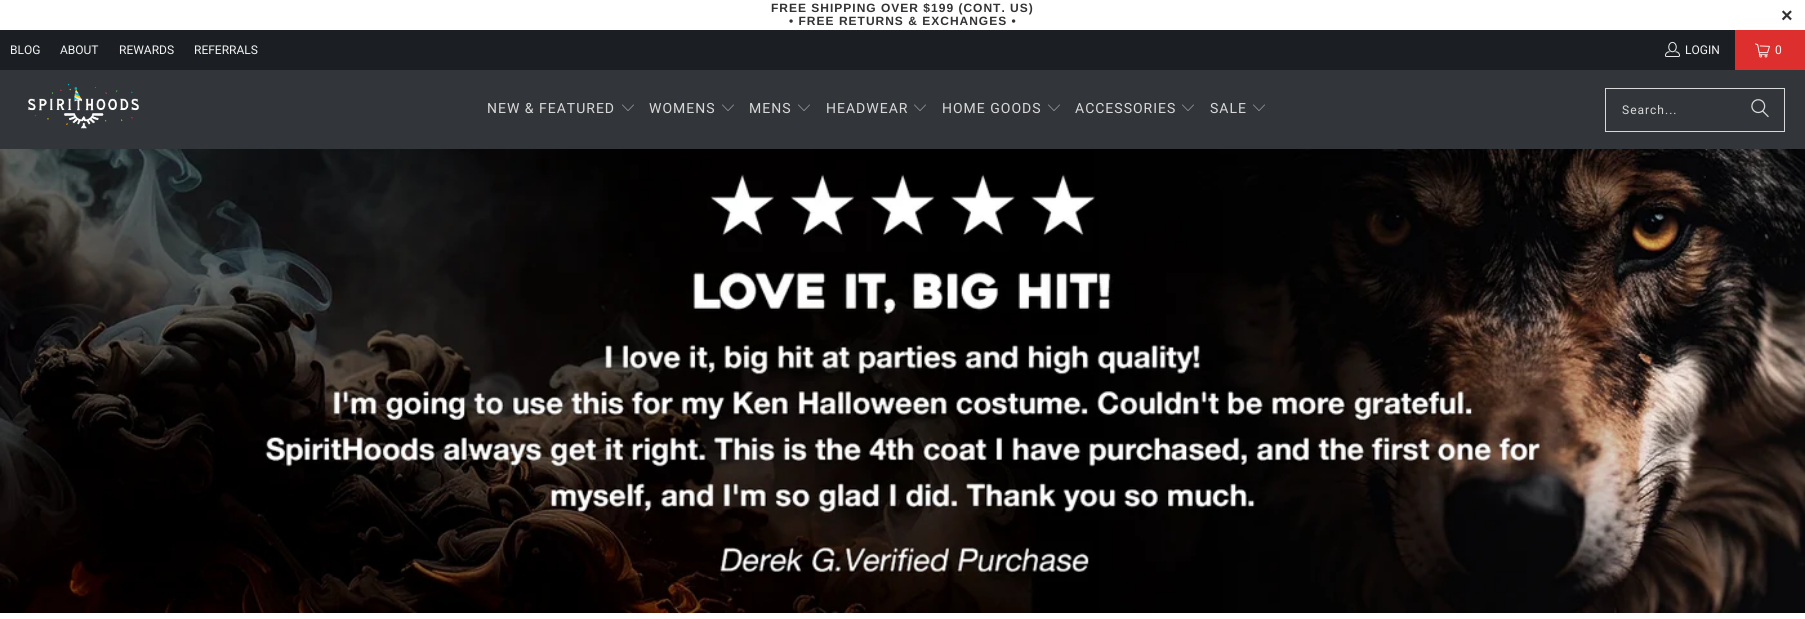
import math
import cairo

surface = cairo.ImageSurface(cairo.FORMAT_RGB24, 1805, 619)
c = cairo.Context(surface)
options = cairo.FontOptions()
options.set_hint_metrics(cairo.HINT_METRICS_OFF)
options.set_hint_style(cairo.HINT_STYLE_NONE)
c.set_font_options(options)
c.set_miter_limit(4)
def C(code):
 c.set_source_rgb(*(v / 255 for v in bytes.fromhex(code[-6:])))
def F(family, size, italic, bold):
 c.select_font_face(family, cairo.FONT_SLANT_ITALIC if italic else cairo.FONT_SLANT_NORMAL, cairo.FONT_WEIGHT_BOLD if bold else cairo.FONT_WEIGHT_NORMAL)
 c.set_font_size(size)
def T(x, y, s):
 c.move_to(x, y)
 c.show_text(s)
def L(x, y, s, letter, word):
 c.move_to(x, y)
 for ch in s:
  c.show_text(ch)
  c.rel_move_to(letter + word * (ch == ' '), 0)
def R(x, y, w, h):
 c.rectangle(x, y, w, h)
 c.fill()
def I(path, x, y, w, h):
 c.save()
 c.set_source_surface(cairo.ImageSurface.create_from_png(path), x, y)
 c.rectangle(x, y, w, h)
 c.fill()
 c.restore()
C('ffffff')
c.paint()
F('Liberation Sans',12,0,1)
C('333333')
L(771,12,'FREE SHIPPING OVER $199 (CONT. US)',1,0)
L(789,25,'• FREE RETURNS & EXCHANGES •',1,0)
F('Liberation Sans',20,0,1)
L(1781,22,'×',1,0)
C('1b1f23')
R(0,30,1735,40)
F('Roboto',12,0,0)
C('f4f4f4')
T(10,54,'BLOG')
T(60,54,'ABOUT')
T(119,54,'REWARDS')
T(194,54,'REFERRALS')
I('1.png',1665,41,15,16)
T(1685,54,'LOGIN')
C('de2f2f')
R(1735,30,70,40)
I('2.png',1755,43,15,15)
C('f4f4f4')
T(1775,54,'0')
C('323539')
R(0,70,1805,79)
I('3.png',28,83,111,46)
F('Roboto',14,0,0)
C('d9d9d9')
L(487,113,'NEW & FEATURED',1,0)
I('4.png',622,104,12,7)
L(649,113,'WOMENS',1,0)
I('4.png',722,104,12,7)
L(749,113,'MENS',1,0)
I('4.png',798,104,12,7)
L(826,113,'HEADWEAR',1,0)
I('4.png',914,104,12,7)
L(942,113,'HOME GOODS',1,0)
I('4.png',1048,104,12,7)
L(1075,113,'ACCESSORIES',1,0)
I('4.png',1182,104,12,7)
L(1210,113,'SALE',1,0)
I('4.png',1253,104,12,7)
c.rectangle(1605.5,88.5,179,43)
c.set_line_width(1)
c.stroke()
F('Roboto',12,0,0)
L(1622,114,'Search...',1,0)
I('5.png',1751,99,18,19)
I('6.png',0,149,1805,464)
surface.write_to_png('o.png')
